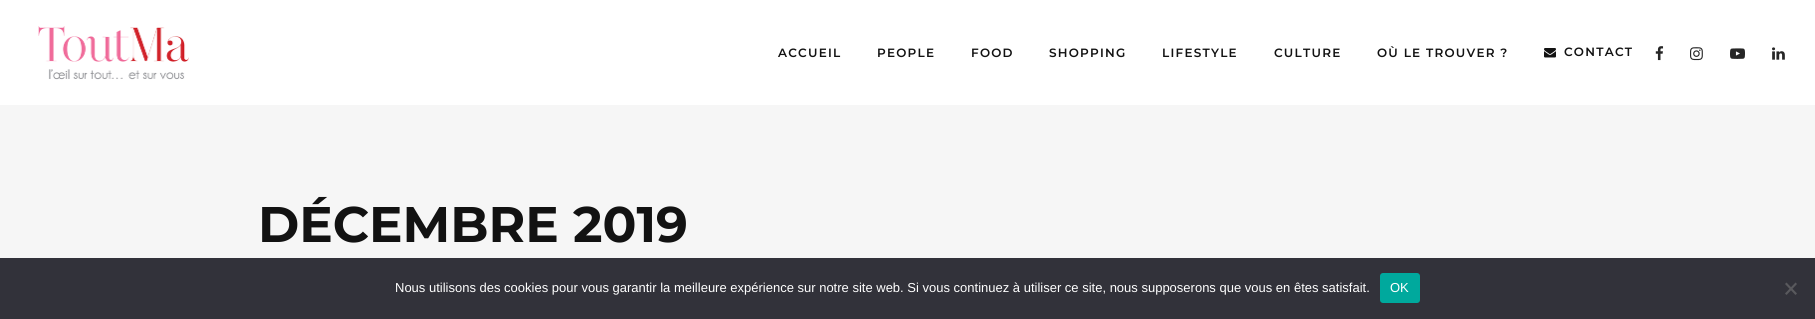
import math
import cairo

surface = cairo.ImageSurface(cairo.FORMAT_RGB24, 1815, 319)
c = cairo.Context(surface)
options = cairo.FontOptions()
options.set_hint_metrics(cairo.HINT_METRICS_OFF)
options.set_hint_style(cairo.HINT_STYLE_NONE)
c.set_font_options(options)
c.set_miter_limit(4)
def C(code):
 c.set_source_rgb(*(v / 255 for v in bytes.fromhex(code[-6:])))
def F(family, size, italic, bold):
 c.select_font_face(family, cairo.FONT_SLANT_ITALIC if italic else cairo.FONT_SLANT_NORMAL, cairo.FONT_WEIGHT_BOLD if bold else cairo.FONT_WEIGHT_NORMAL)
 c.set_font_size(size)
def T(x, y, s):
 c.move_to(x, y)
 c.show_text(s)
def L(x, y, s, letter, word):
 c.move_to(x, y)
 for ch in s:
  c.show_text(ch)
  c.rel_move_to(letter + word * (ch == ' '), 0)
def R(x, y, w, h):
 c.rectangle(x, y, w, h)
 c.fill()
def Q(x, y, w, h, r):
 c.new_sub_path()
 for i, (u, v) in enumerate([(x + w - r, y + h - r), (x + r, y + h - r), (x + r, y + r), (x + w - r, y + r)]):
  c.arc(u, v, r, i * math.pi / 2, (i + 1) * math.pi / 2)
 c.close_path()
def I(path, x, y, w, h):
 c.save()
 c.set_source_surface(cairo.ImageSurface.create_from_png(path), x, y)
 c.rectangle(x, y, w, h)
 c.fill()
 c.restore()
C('ffffff')
c.paint()
I('1.png',38,26,151,54)
F('Montserrat SemiBold',12,0,0)
C('121212')
L(778,57,'ACCUEIL',1.25,0)
L(877,57,'PEOPLE',1.25,0)
L(971,57,'FOOD',1.25,0)
L(1049,57,'SHOPPING',1.25,0)
L(1162,57,'LIFESTYLE',1.25,0)
L(1274,57,'CULTURE',1.25,0)
L(1377,57,'OÙ LE TROUVER ?',1.25,0)
I('2.png',1544,48,12,10)
L(1564,56,'CONTACT',1.25,0)
I('3.png',1655,46,9,15)
I('4.png',1690,47,13,14)
I('5.png',1730,48,15,11)
I('6.png',1772,47,13,13)
C('f6f6f6')
R(0,105,1815,153)
F('Montserrat',50,0,1)
C('121212')
T(258,242,'DÉCEMBRE 2019')
C('32323a')
R(0,258,1815,61)
F('Liberation Sans',13,0,0)
C('ffffff')
T(395,292,'Nous utilisons des cookies pour vous garantir la meilleure expérience sur notre site web. Si vous continuez à utiliser ce site, nous supposerons que vous en êtes satisfait.')
C('00a99d')
Q(1380,273,40,30,3)
c.fill()
C('ffffff')
T(1390,292,'OK')
C('59595d')
c.new_path()
c.move_to(1795.5,282.5)
c.line_to(1797,284)
c.line_to(1786.5,295)
c.line_to(1785,293.5)
c.close_path()
c.fill()
c.new_path()
c.move_to(1785,284)
c.line_to(1786.5,282.5)
c.line_to(1797,293.5)
c.line_to(1795.5,295)
c.close_path()
c.fill()
surface.write_to_png('o.png')
